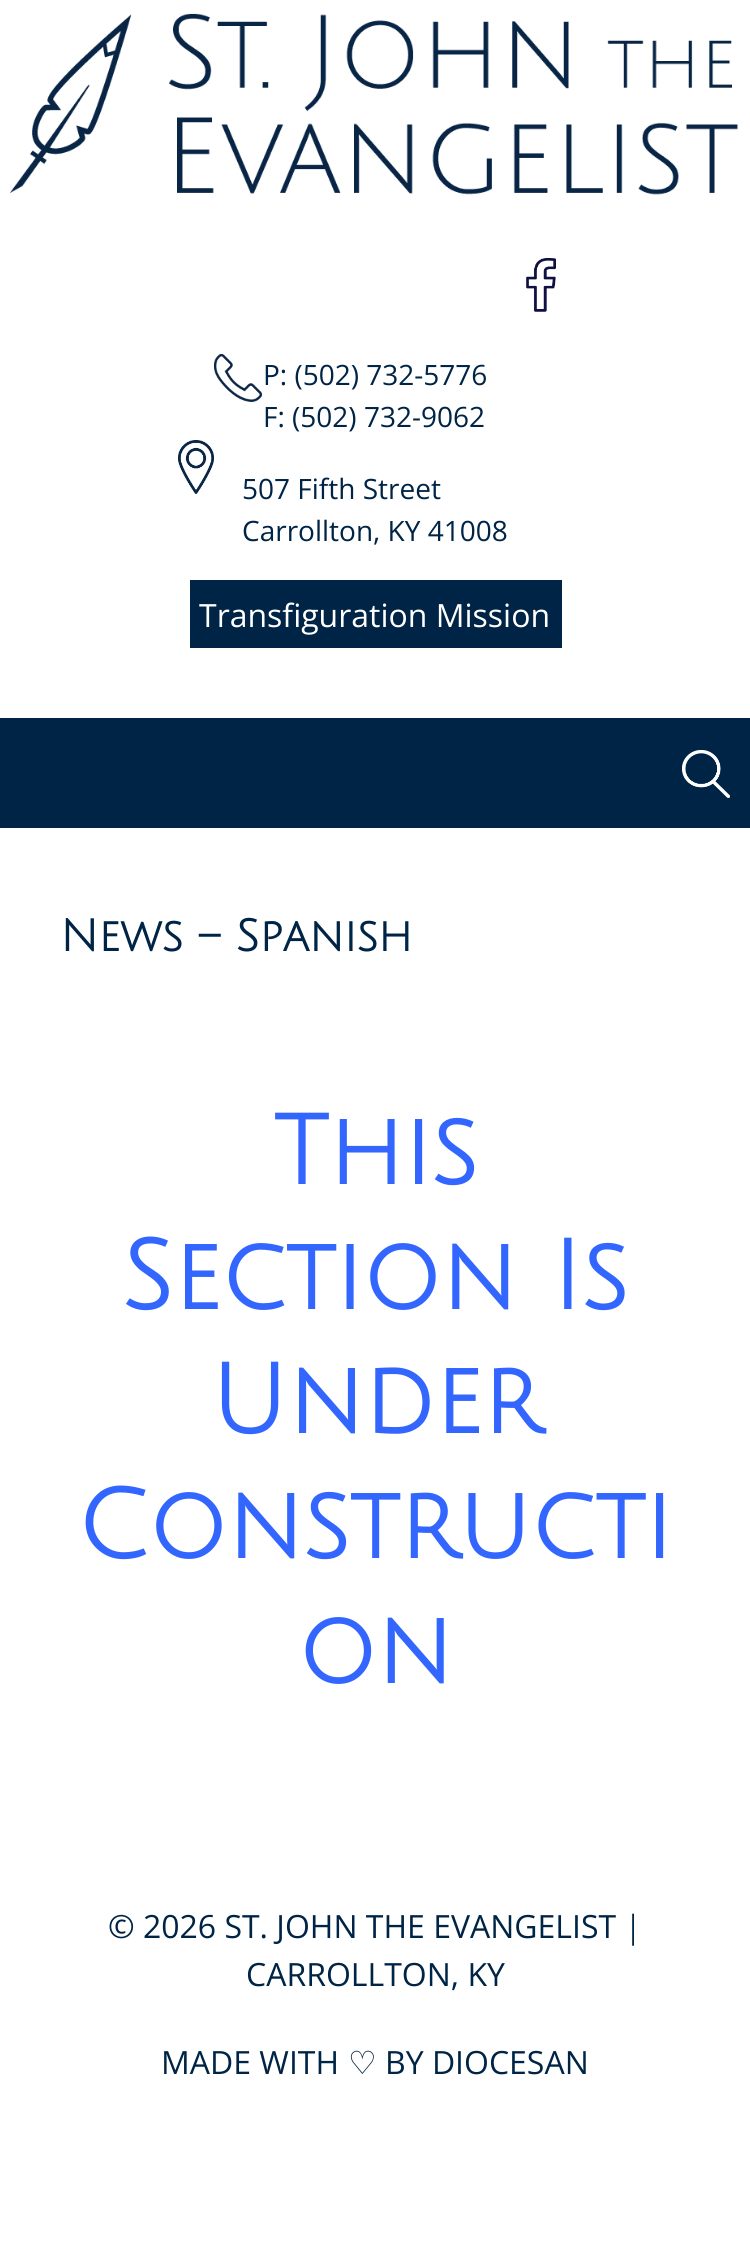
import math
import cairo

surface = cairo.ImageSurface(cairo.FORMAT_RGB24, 750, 2246)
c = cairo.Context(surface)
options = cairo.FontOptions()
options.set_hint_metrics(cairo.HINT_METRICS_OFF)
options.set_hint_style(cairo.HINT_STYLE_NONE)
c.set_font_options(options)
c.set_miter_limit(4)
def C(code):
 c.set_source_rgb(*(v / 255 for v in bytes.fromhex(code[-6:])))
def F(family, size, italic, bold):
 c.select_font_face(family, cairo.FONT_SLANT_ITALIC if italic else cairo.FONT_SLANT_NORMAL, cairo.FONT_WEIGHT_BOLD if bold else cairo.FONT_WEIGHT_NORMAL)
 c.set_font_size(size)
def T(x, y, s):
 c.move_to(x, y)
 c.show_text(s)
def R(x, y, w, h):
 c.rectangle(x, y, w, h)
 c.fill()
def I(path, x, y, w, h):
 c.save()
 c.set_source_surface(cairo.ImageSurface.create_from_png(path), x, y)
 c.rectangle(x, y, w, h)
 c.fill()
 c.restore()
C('ffffff')
c.paint()
I('1.png',10,13,728,182)
I('2.png',526,258,30,54)
I('3.png',214,354,48,48)
F('Open Sans',28,0,0)
C('002445')
T(263,385,'P: (502) 732-5776')
T(263,427,'F: (502) 732-9062')
I('4.png',178,440,36,54)
T(242,499,'507 Fifth Street')
T(242,541,'Carrollton, KY 41008')
R(190,580,372,68)
F('Open Sans',32,0,0)
C('ffffff')
T(199,627,'Transfiguration Mission')
C('002445')
R(0,718,750,110)
I('5.png',682,750,48,48)
F('Julius Sans One',44,0,1)
T(60,951,'News – Spanish')
F('Julius Sans One',96,0,1)
C('3366ff')
T(273,1184,'This')
T(121,1309,'Section Is')
T(210,1433,'Under')
T(77,1558,'Constructi')
T(298,1683,'on')
F('Open Sans',32,0,0)
C('002445')
T(108,1938,'© 2026 ST. JOHN THE EVANGELIST |')
T(246,1986,'CARROLLTON, KY')
T(161,2074,'MADE WITH')
F('DejaVu Sans',32,0,0)
T(348,2074,'♡')
F('Open Sans',32,0,0)
T(385,2074,'BY DIOCESAN')
surface.write_to_png('o.png')
